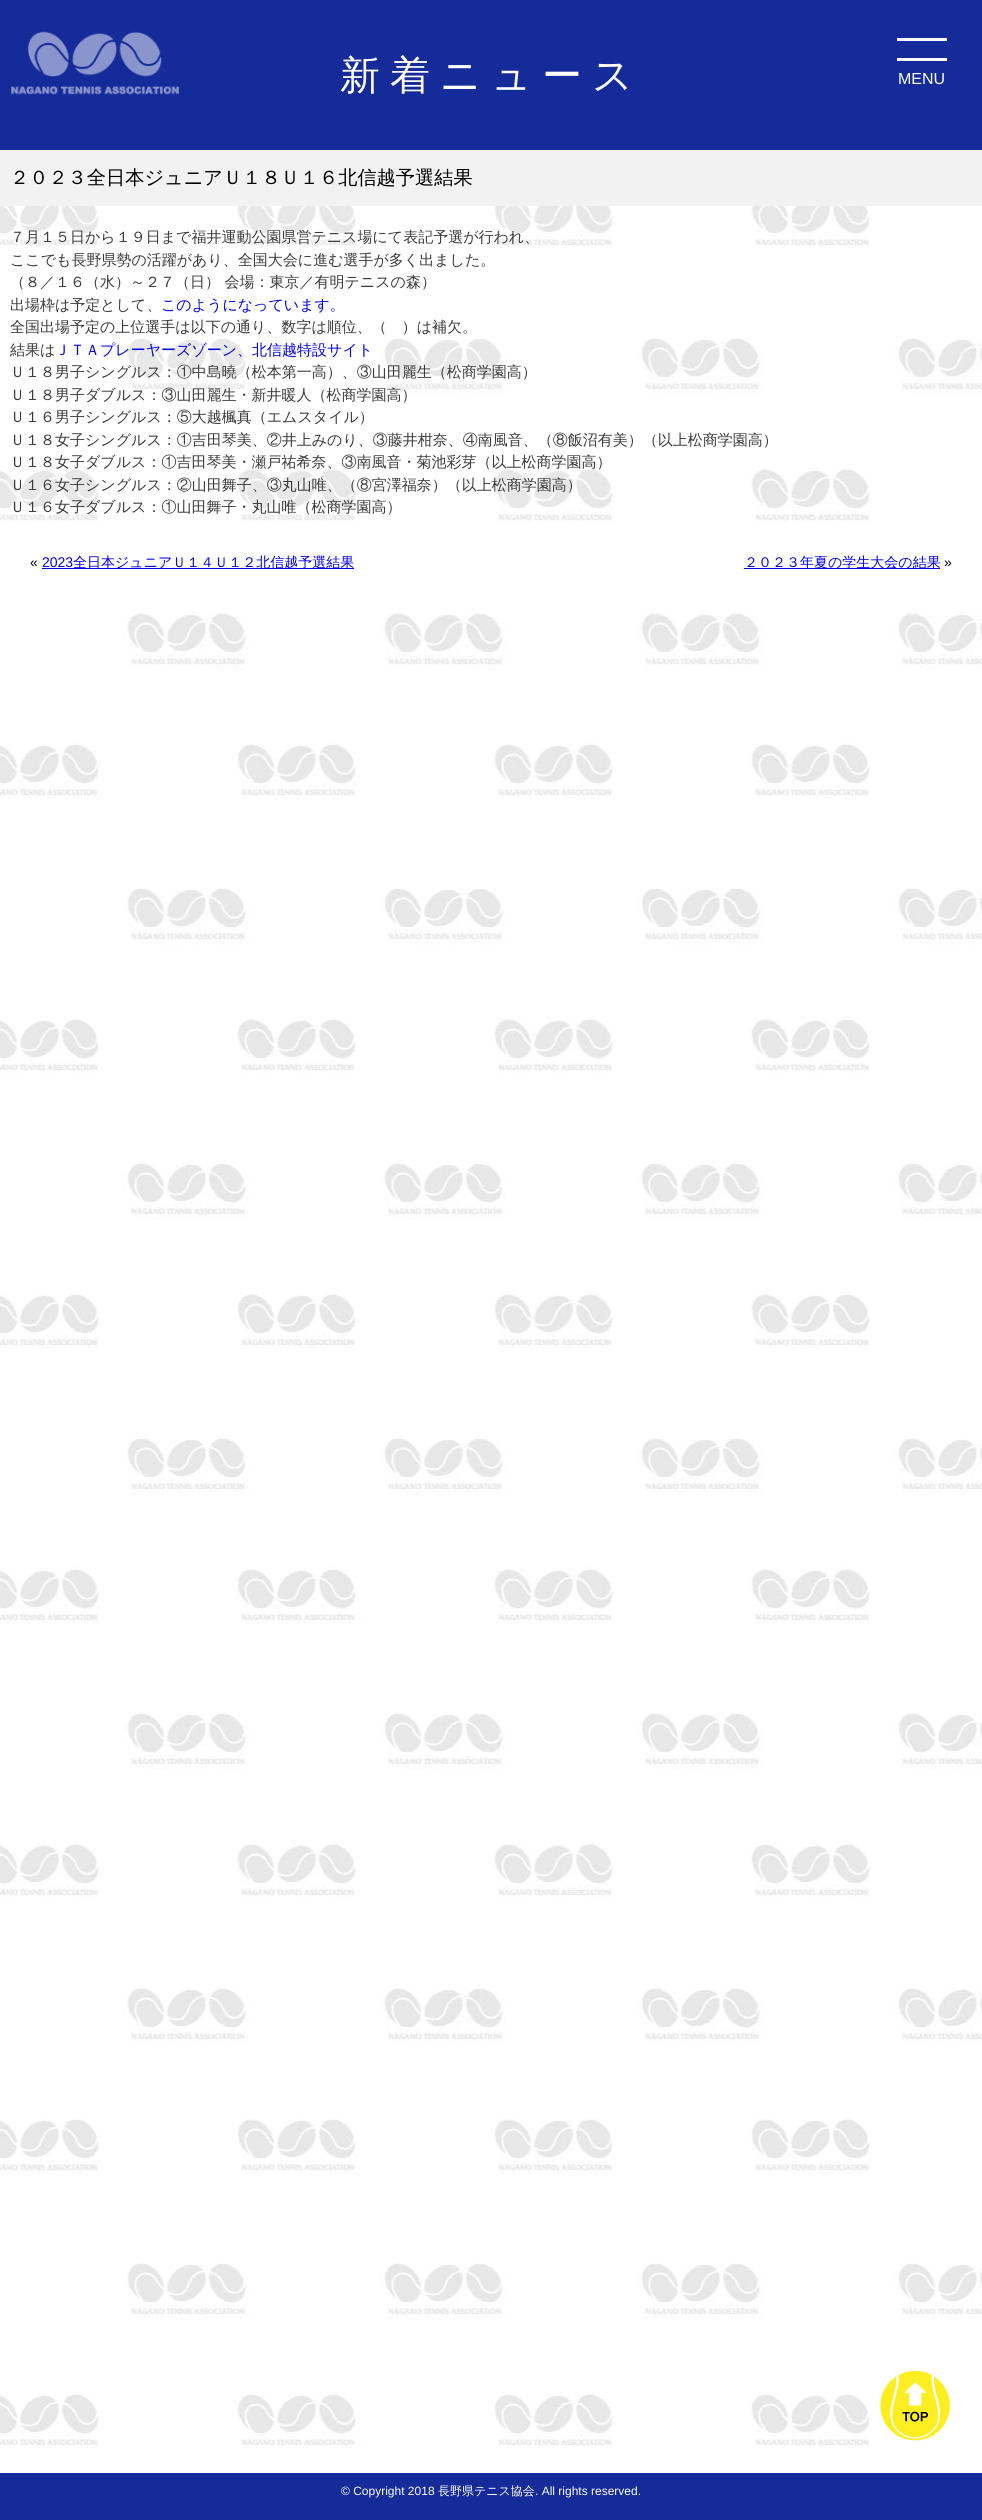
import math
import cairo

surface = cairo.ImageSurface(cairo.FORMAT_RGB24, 982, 2520)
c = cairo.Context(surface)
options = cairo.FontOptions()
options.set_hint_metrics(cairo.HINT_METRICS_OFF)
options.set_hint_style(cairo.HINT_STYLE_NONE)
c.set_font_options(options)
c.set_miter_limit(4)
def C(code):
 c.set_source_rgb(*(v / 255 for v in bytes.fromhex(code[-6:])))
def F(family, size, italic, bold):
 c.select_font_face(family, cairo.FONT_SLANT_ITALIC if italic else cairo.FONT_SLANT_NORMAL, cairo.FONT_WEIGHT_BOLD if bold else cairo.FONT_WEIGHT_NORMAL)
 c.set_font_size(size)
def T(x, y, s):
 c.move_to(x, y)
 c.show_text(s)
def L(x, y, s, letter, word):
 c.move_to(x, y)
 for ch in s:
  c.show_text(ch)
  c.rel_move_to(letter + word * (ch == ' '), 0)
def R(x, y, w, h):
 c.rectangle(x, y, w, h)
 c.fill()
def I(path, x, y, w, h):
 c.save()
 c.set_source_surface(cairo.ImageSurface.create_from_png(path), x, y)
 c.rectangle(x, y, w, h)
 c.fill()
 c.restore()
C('ffffff')
c.paint()
I('1.png',0,206,982,2242)
C('152b9a')
R(0,0,982,150)
F('WenQuanYi Zen Hei Medium',40,0,0)
C('ffffff')
L(340,89,'新着ニュース',10,0)
I('2.png',11,31,168,64)
R(897,38,50,3)
R(897,58,50,3)
F('Liberation Sans',16,0,0)
T(898,84,'MENU')
C('f2f2f2')
R(0,150,982,56)
F('WenQuanYi Zen Hei Medium',19.2,0,0)
C('000000')
T(10,184,'２０２３全日本ジュニアＵ１８Ｕ１６北信越予選結果')
F('WenQuanYi Zen Hei Medium',15,0,0)
C('3a3a3a')
T(10,242,'７月１５日から１９日まで福井運動公園県営テニス場にて表記予選が行われ、')
T(10,265,'ここでも長野県勢の活躍があり、全国大会に進む選手が多く出ました。')
T(10,287,'（８／１６（水）～２７（日） 会場：東京／有明テニスの森）')
T(10,310,'出場枠は予定として、')
C('0000ee')
T(161,310,'このようになっています。')
C('3a3a3a')
T(10,332,'全国出場予定の上位選手は以下の通り、数字は順位、（　）は補欠。')
T(10,355,'結果は')
C('0000ee')
T(55,355,'ＪＴＡプレーヤーズゾーン、北信越特設サイト')
C('3a3a3a')
T(10,377,'Ｕ１８男子シングルス：①中島曉（松本第一高）、③山田麗生（松商学園高）')
T(10,400,'Ｕ１８男子ダブルス：③山田麗生・新井暖人（松商学園高）')
T(10,422,'Ｕ１６男子シングルス：⑤大越楓真（エムスタイル）')
T(10,445,'Ｕ１８女子シングルス：①吉田琴美、②井上みのり、③藤井柑奈、④南風音、（⑧飯沼有美）（以上松商学園高）')
T(10,467,'Ｕ１８女子ダブルス：①吉田琴美・瀬戸祐希奈、③南風音・菊池彩芽（以上松商学園高）')
T(10,490,'Ｕ１６女子シングルス：②山田舞子、③丸山唯、（⑧宮澤福奈）（以上松商学園高）')
T(10,512,'Ｕ１６女子ダブルス：①山田舞子・丸山唯（松商学園高）')
F('Liberation Sans',14,0,0)
C('000000')
T(30,567,'«')
C('0000ee')
T(42,567,'2023')
R(42,568,312,1)
F('WenQuanYi Zen Hei Medium',14,0,0)
T(73,567,'全日本ジュニアＵ１４Ｕ１２北信越予選結果')
R(744,568,196,1)
T(744,567,'２０２３年夏の学生大会の結果')
F('Liberation Sans',14,0,0)
C('000000')
T(944,567,'»')
I('3.png',880,2371,70,70)
C('152b9a')
R(0,2473,982,47)
F('Liberation Sans',12,0,0)
C('ffffff')
T(341,2495,'© Copyright 2018')
F('WenQuanYi Zen Hei Medium',12,0,0)
T(438,2495,'長野県テニス協会')
F('Liberation Sans',12,0,0)
T(535,2495,'. All rights reserved.')
surface.write_to_png('o.png')
